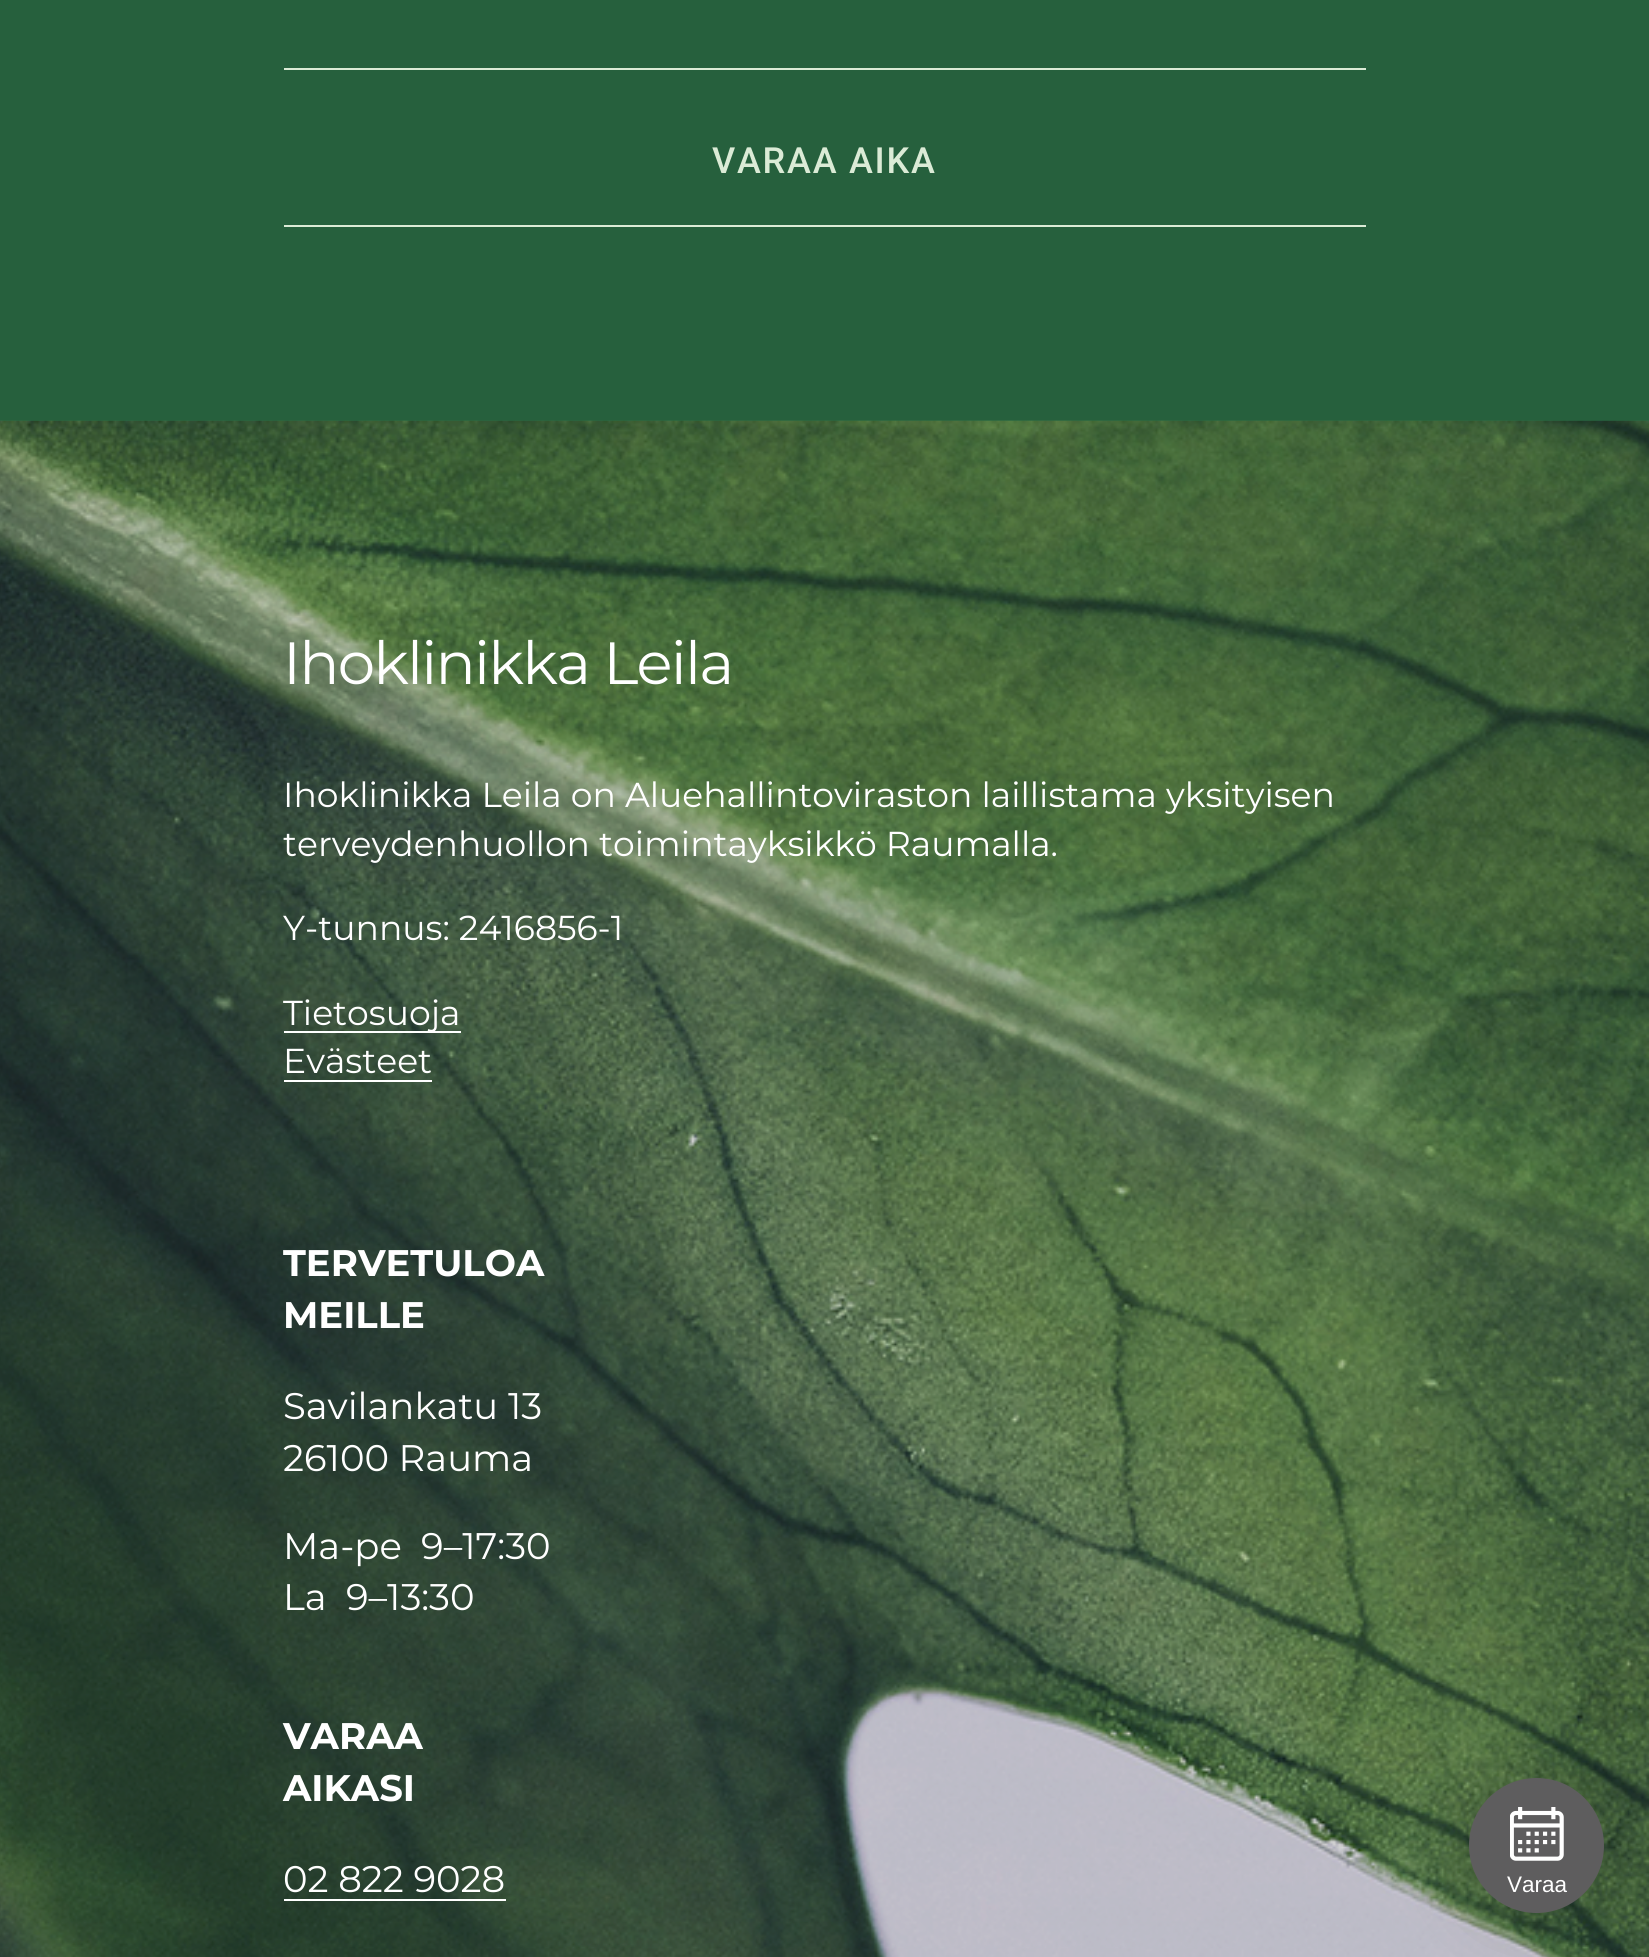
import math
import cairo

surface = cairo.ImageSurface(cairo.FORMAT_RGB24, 1649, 1957)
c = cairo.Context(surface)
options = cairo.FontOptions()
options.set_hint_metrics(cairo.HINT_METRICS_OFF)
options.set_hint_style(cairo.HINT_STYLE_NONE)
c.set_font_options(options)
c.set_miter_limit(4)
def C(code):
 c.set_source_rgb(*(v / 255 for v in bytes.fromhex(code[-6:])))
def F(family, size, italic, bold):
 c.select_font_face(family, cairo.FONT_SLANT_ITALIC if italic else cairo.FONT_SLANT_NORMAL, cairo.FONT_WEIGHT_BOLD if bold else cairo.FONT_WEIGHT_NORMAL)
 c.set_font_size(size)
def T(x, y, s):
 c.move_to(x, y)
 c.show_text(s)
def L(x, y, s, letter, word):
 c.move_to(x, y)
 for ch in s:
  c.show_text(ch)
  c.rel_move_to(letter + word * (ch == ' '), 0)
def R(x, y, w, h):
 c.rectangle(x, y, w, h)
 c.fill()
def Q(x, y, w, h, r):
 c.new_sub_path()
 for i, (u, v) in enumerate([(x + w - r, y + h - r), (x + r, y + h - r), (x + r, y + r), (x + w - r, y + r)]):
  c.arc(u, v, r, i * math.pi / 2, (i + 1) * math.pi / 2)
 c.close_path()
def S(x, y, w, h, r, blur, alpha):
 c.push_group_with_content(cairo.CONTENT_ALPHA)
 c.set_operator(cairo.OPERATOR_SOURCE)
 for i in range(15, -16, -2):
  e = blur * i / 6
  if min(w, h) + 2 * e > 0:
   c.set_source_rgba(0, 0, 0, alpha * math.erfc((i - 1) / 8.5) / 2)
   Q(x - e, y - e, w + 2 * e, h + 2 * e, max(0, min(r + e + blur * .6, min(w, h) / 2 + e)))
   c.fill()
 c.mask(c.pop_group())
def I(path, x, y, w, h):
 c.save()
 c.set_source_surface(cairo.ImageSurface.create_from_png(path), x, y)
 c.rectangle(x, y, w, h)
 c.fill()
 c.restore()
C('26603d')
c.paint()
C('dbebd6')
R(284,68,1082,2)
R(284,225,1082,2)
F('Roboto Medium',36,0,0)
L(712,173,'VARAA AIKA',1.75,0)
I('1.png',0,420,1649,1537)
F('Montserrat',59.5,0,0)
C('ffffff')
L(283,684,'Ihoklinikka Leila',-1.75,0)
F('Montserrat',34.6,0,0)
T(283,807,'Ihoklinikka Leila on Aluehallintoviraston laillistama yksityisen')
T(283,856,'terveydenhuollon toimintayksikkö Raumalla.')
T(283,940,'Y-tunnus: 2416856-1')
R(284,1031,177,2)
T(283,1025,'Tietosuoja')
T(283,1073,'Evästeet')
R(284,1080,148,2)
F('Montserrat',37,0,1)
T(283,1276,'TERVETULOA')
T(283,1328,'MEILLE')
F('Montserrat',37,0,0)
T(283,1419,'Savilankatu 13')
T(283,1471,'26100 Rauma')
T(283,1559,'Ma-pe  9–17:30')
T(283,1610,'La  9–13:30')
F('Montserrat',37,0,1)
T(283,1749,'VARAA')
T(283,1801,'AIKASI')
F('Montserrat',37,0,0)
T(283,1892,'02 822 9028')
R(284,1899,222,2)
C('000000')
S(1469,1782,135,135,67.5,36,.16)
C('5e5d5e')
c.arc(1536.5,1845.5,67.5,0,2 * math.pi)
c.fill()
I('2.png',1510,1807,54,54)
F('Liberation Sans',22.5,0,0)
C('ffffff')
T(1507,1892,'Varaa')
surface.write_to_png('o.png')
